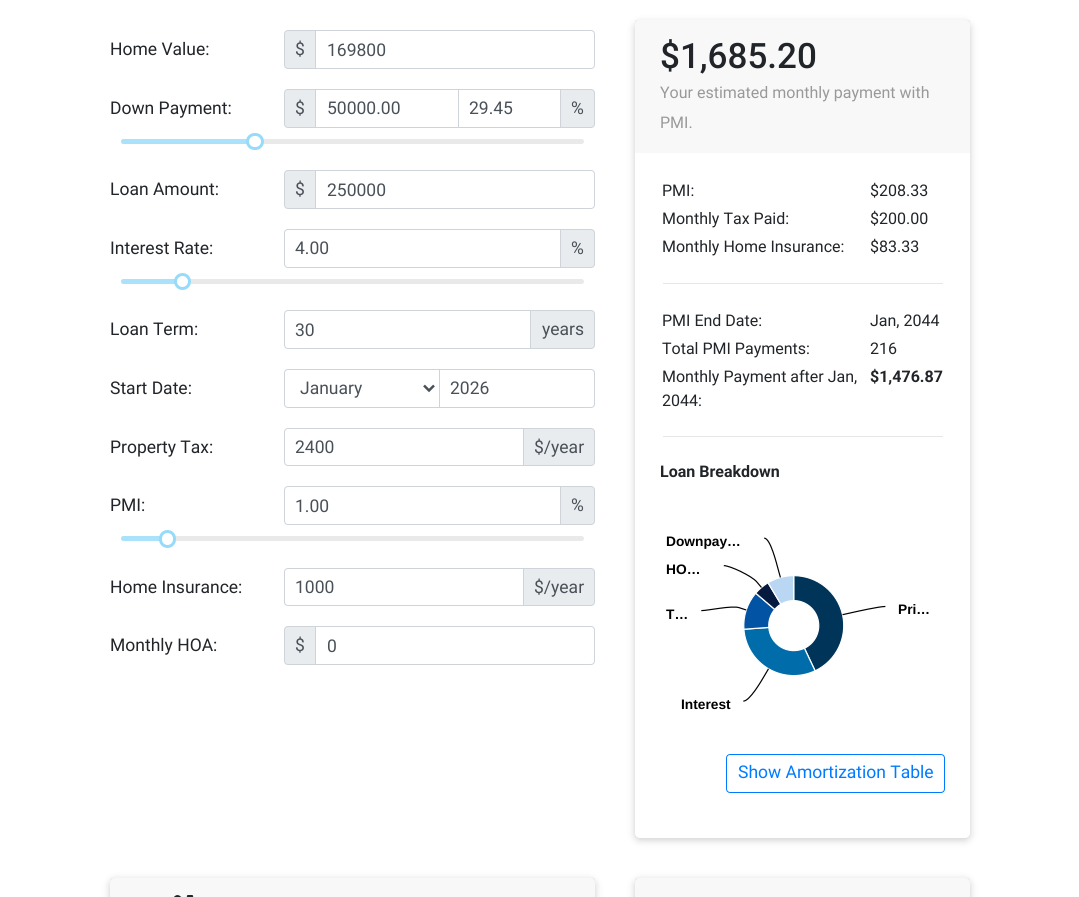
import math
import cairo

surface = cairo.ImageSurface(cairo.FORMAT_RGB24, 1079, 897)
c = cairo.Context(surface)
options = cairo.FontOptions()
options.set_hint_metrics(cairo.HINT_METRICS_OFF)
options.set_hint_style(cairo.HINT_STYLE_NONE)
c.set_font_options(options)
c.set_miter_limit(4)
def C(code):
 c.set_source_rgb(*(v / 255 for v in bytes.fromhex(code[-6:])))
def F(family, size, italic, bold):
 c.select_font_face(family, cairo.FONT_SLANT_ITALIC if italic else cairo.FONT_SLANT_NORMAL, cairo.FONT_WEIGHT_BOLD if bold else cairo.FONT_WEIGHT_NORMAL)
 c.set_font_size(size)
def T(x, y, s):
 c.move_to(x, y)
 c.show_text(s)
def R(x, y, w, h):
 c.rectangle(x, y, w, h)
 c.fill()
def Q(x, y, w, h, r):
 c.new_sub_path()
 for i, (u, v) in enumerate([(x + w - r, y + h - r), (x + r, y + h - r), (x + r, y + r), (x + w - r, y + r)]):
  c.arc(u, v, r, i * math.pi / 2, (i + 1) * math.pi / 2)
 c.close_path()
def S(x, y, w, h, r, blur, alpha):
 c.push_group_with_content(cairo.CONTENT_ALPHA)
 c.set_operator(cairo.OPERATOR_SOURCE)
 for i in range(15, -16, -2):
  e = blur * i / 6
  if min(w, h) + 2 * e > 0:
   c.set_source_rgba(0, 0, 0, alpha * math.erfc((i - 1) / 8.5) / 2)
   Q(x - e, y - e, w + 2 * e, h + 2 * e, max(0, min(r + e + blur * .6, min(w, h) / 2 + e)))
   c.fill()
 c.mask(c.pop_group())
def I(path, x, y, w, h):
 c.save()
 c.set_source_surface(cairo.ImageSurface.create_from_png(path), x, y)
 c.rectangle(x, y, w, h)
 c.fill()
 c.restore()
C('ffffff')
c.paint()
F('Roboto',17.5,0,0)
C('212529')
T(110,55,'Home Value:')
C('e9ecef')
c.new_path()
c.move_to(288,30.5)
c.line_to(315.5,30.5)
c.line_to(315.5,68.5)
c.line_to(288,68.5)
c.curve_to(286,68.5,284.5,67,284.5,65)
c.line_to(284.5,34)
c.curve_to(284.5,32,286,30.5,288,30.5)
c.close_path()
c.fill_preserve()
C('ced4da')
c.set_line_width(1)
c.stroke()
C('495057')
T(295,55,'$')
c.new_path()
c.move_to(315.5,30.5)
c.line_to(591,30.5)
c.curve_to(593,30.5,594.5,32,594.5,34)
c.line_to(594.5,65)
c.curve_to(594.5,67,593,68.5,591,68.5)
c.line_to(315.5,68.5)
c.close_path()
C('ced4da')
c.stroke()
C('495057')
T(327,56,'169800')
C('212529')
T(110,114,'Down Payment:')
C('e9ecef')
c.new_path()
c.move_to(288,89.5)
c.line_to(315.5,89.5)
c.line_to(315.5,127.5)
c.line_to(288,127.5)
c.curve_to(286,127.5,284.5,126,284.5,124)
c.line_to(284.5,93)
c.curve_to(284.5,91,286,89.5,288,89.5)
c.close_path()
c.fill_preserve()
C('ced4da')
c.stroke()
C('495057')
T(295,114,'$')
c.rectangle(315.5,89.5,143,38)
C('ced4da')
c.stroke()
C('495057')
T(327,114,'50000.00')
C('e9ecef')
c.new_path()
c.move_to(560.5,89.5)
c.line_to(591,89.5)
c.curve_to(593,89.5,594.5,91,594.5,93)
c.line_to(594.5,124)
c.curve_to(594.5,126,593,127.5,591,127.5)
c.line_to(560.5,127.5)
c.close_path()
c.fill_preserve()
C('ced4da')
c.stroke()
c.rectangle(458.5,89.5,102,38)
c.stroke()
C('495057')
T(469,114,'29.45')
T(571,114,'%')
C('e9e9e9')
Q(121,139,463,5,2.5)
c.fill()
C('abe2fb')
Q(121,139,134,5,2.5)
c.fill()
C('ffffff')
Q(247.5,134.5,15,14,7)
c.fill_preserve()
C('96dbfa')
c.set_line_width(3)
c.stroke()
C('212529')
T(110,195,'Loan Amount:')
C('e9ecef')
c.new_path()
c.move_to(288,170.5)
c.line_to(315.5,170.5)
c.line_to(315.5,208.5)
c.line_to(288,208.5)
c.curve_to(286,208.5,284.5,207,284.5,205)
c.line_to(284.5,174)
c.curve_to(284.5,172,286,170.5,288,170.5)
c.close_path()
c.fill_preserve()
C('ced4da')
c.set_line_width(1)
c.stroke()
C('495057')
T(295,195,'$')
c.new_path()
c.move_to(315.5,170.5)
c.line_to(591,170.5)
c.curve_to(593,170.5,594.5,172,594.5,174)
c.line_to(594.5,205)
c.curve_to(594.5,207,593,208.5,591,208.5)
c.line_to(315.5,208.5)
c.close_path()
C('ced4da')
c.stroke()
C('495057')
T(327,196,'250000')
C('212529')
T(110,254,'Interest Rate:')
C('e9ecef')
c.new_path()
c.move_to(560.5,229.5)
c.line_to(591,229.5)
c.curve_to(593,229.5,594.5,231,594.5,233)
c.line_to(594.5,264)
c.curve_to(594.5,266,593,267.5,591,267.5)
c.line_to(560.5,267.5)
c.close_path()
c.fill_preserve()
C('ced4da')
c.stroke()
c.new_path()
c.move_to(288,229.5)
c.line_to(560.5,229.5)
c.line_to(560.5,267.5)
c.line_to(288,267.5)
c.curve_to(286,267.5,284.5,266,284.5,264)
c.line_to(284.5,233)
c.curve_to(284.5,231,286,229.5,288,229.5)
c.close_path()
c.stroke()
C('495057')
T(295,254,'4.00')
T(571,254,'%')
C('e9e9e9')
Q(121,279,463,5,2.5)
c.fill()
C('abe2fb')
Q(121,279,62,5,2.5)
c.fill()
C('ffffff')
c.arc(182.5,281.5,7,0,2 * math.pi)
c.fill_preserve()
C('96dbfa')
c.set_line_width(3)
c.stroke()
C('212529')
T(110,335,'Loan Term:')
C('e9ecef')
c.new_path()
c.move_to(530.5,310.5)
c.line_to(591,310.5)
c.curve_to(593,310.5,594.5,312,594.5,314)
c.line_to(594.5,345)
c.curve_to(594.5,347,593,348.5,591,348.5)
c.line_to(530.5,348.5)
c.close_path()
c.fill_preserve()
C('ced4da')
c.set_line_width(1)
c.stroke()
c.new_path()
c.move_to(288,310.5)
c.line_to(530.5,310.5)
c.line_to(530.5,348.5)
c.line_to(288,348.5)
c.curve_to(286,348.5,284.5,347,284.5,345)
c.line_to(284.5,314)
c.curve_to(284.5,312,286,310.5,288,310.5)
c.close_path()
c.stroke()
C('495057')
T(295,336,'30')
T(542,335,'years')
C('212529')
T(110,394,'Start Date:')
c.new_path()
c.move_to(288,369.5)
c.line_to(439.5,369.5)
c.line_to(439.5,407.5)
c.line_to(288,407.5)
c.curve_to(286,407.5,284.5,406,284.5,404)
c.line_to(284.5,373)
c.curve_to(284.5,371,286,369.5,288,369.5)
c.close_path()
C('ced4da')
c.stroke()
c.new_path()
c.move_to(424,385.5)
c.line_to(429,390.5)
c.line_to(434,385.5)
C('495057')
c.set_line_width(2.5)
c.stroke()
T(300,394,'January')
c.new_path()
c.move_to(439.5,369.5)
c.line_to(591,369.5)
c.curve_to(593,369.5,594.5,371,594.5,373)
c.line_to(594.5,404)
c.curve_to(594.5,406,593,407.5,591,407.5)
c.line_to(439.5,407.5)
c.close_path()
C('ced4da')
c.set_line_width(1)
c.stroke()
C('495057')
T(450,394,'2026')
C('212529')
T(110,453,'Property Tax:')
C('e9ecef')
c.new_path()
c.move_to(523.5,428.5)
c.line_to(591,428.5)
c.curve_to(593,428.5,594.5,430,594.5,432)
c.line_to(594.5,462)
c.curve_to(594.5,464,593,465.5,591,465.5)
c.line_to(523.5,465.5)
c.close_path()
c.fill_preserve()
C('ced4da')
c.stroke()
c.new_path()
c.move_to(288,428.5)
c.line_to(523.5,428.5)
c.line_to(523.5,465.5)
c.line_to(288,465.5)
c.curve_to(286,465.5,284.5,464,284.5,462)
c.line_to(284.5,432)
c.curve_to(284.5,430,286,428.5,288,428.5)
c.close_path()
c.stroke()
C('495057')
T(295,453,'2400')
T(534,453,'$/year')
C('212529')
T(110,511,'PMI:')
C('e9ecef')
c.new_path()
c.move_to(560.5,486.5)
c.line_to(591,486.5)
c.curve_to(593,486.5,594.5,488,594.5,490)
c.line_to(594.5,521)
c.curve_to(594.5,523,593,524.5,591,524.5)
c.line_to(560.5,524.5)
c.close_path()
c.fill_preserve()
C('ced4da')
c.stroke()
c.new_path()
c.move_to(288,486.5)
c.line_to(560.5,486.5)
c.line_to(560.5,524.5)
c.line_to(288,524.5)
c.curve_to(286,524.5,284.5,523,284.5,521)
c.line_to(284.5,490)
c.curve_to(284.5,488,286,486.5,288,486.5)
c.close_path()
c.stroke()
C('495057')
T(295,512,'1.00')
T(571,511,'%')
C('e9e9e9')
Q(121,536,463,5,2.5)
c.fill()
C('abe2fb')
Q(121,536,47,5,2.5)
c.fill()
C('ffffff')
Q(160.5,531.5,14,15,7)
c.fill_preserve()
C('96dbfa')
c.set_line_width(3)
c.stroke()
C('212529')
T(110,593,'Home Insurance:')
C('e9ecef')
c.new_path()
c.move_to(523.5,568.5)
c.line_to(591,568.5)
c.curve_to(593,568.5,594.5,570,594.5,572)
c.line_to(594.5,602)
c.curve_to(594.5,604,593,605.5,591,605.5)
c.line_to(523.5,605.5)
c.close_path()
c.fill_preserve()
C('ced4da')
c.set_line_width(1)
c.stroke()
c.new_path()
c.move_to(288,568.5)
c.line_to(523.5,568.5)
c.line_to(523.5,605.5)
c.line_to(288,605.5)
c.curve_to(286,605.5,284.5,604,284.5,602)
c.line_to(284.5,572)
c.curve_to(284.5,570,286,568.5,288,568.5)
c.close_path()
c.stroke()
C('495057')
T(295,593,'1000')
T(534,593,'$/year')
C('212529')
T(110,651,'Monthly HOA:')
C('e9ecef')
c.new_path()
c.move_to(288,626.5)
c.line_to(315.5,626.5)
c.line_to(315.5,664.5)
c.line_to(288,664.5)
c.curve_to(286,664.5,284.5,663,284.5,661)
c.line_to(284.5,630)
c.curve_to(284.5,628,286,626.5,288,626.5)
c.close_path()
c.fill_preserve()
C('ced4da')
c.stroke()
C('495057')
T(295,651,'$')
c.new_path()
c.move_to(315.5,626.5)
c.line_to(591,626.5)
c.curve_to(593,626.5,594.5,628,594.5,630)
c.line_to(594.5,661)
c.curve_to(594.5,663,593,664.5,591,664.5)
c.line_to(315.5,664.5)
c.close_path()
C('ced4da')
c.stroke()
C('495057')
T(327,652,'0')
C('000000')
S(635,23,335,817,5,4,.2)
C('ffffff')
Q(635,20,335,818,5)
c.fill()
c.set_source_rgba(0,0,0,0.03)
R(635,20,335,133)
F('Roboto Medium',35,0,0)
C('212529')
T(660,68,'$1,685.20')
F('Roboto',16,0,0)
C('999999')
T(660,98,'Your estimated monthly payment with')
T(660,128,'PMI.')
C('212529')
T(662,196,'PMI:')
T(870,196,'$208.33')
T(662,224,'Monthly Tax Paid:')
T(870,224,'$200.00')
T(662,252,'Monthly Home Insurance:')
T(870,252,'$83.33')
C('e6e6e6')
R(663,283,280,1)
C('212529')
T(662,326,'PMI End Date:')
T(870,326,'Jan, 2044')
T(662,354,'Total PMI Payments:')
T(870,354,'216')
T(662,382,'Monthly Payment after Jan,')
T(662,406,'2044:')
F('Roboto',16,0,1)
T(870,382,'$1,476.87')
C('e6e6e6')
R(663,436,280,1)
C('212529')
T(660,477,'Loan Breakdown')
I('1.png',701,537,185,165)
F('Liberation Sans',13.75,0,1)
C('000000')
T(666,546,'Downpay…')
T(666,574,'HO…')
T(666,619,'T…')
T(898,614,'Pri…')
T(681,709,'Interest')
Q(726.5,754.5,218,38,3.5)
C('007bff')
c.stroke()
F('Roboto',17.5,0,0)
T(738,778,'Show Amortization Table')
C('000000')
S(110,880,485,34,5,4,.2)
C('ffffff')
Q(110,878,485,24,5)
c.fill()
c.set_source_rgba(0,0,0,0.03)
R(110,878,485,19)
I('2.png',174,895,20,2)
C('000000')
S(635,880,335,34,5,4,.2)
C('ffffff')
Q(635,878,335,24,5)
c.fill()
c.set_source_rgba(0,0,0,0.03)
R(635,878,335,19)
surface.write_to_png('o.png')
